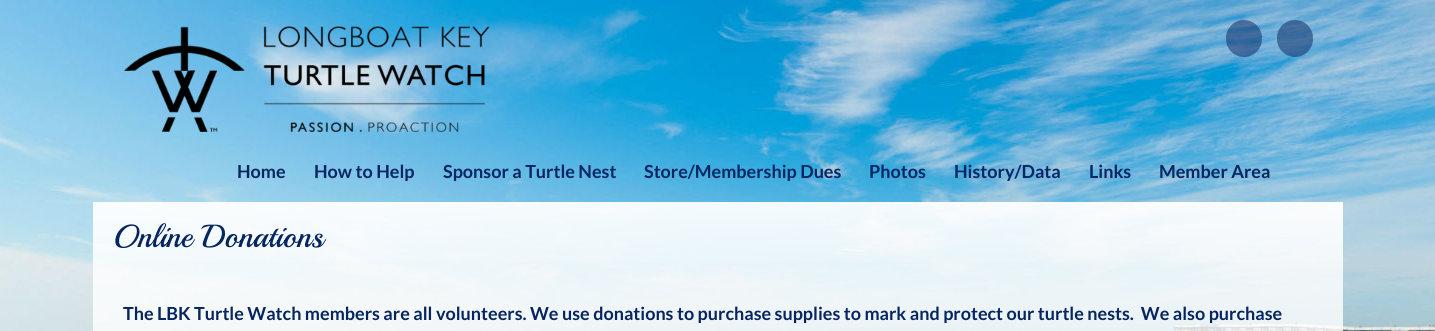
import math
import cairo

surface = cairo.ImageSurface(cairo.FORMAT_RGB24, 1435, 331)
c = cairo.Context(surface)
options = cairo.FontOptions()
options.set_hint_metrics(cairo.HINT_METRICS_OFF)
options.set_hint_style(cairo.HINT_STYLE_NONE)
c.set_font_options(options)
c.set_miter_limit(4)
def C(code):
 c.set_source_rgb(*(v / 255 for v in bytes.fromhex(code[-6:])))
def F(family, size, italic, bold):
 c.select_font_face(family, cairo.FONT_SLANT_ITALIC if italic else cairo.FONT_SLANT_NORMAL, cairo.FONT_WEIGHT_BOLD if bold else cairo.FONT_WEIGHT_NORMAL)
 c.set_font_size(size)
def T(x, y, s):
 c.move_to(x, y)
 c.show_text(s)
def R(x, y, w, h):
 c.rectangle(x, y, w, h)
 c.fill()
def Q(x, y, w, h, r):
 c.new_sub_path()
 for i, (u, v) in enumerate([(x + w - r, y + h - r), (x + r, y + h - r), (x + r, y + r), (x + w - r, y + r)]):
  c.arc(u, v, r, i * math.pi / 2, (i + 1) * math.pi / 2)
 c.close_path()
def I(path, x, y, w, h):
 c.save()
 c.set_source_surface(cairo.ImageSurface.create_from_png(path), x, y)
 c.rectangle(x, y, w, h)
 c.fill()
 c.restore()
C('ffffff')
c.paint()
I('1.png',0,0,1435,331)
I('2.png',124,26,366,106)
c.set_source_rgba(0.024,0.145,0.38,0.5)
Q(1226,20,36,37,18)
c.fill()
Q(1277,20,36,37,18)
c.fill()
F('Lato',18,0,1)
C('062561')
T(237,178,'Home')
T(314,178,'How to Help')
T(443,178,'Sponsor a Turtle Nest')
T(644,178,'Store/Membership Dues')
T(869,178,'Photos')
T(954,178,'History/Data')
T(1089,178,'Links')
T(1159,178,'Member Area')
c.set_source_rgba(1,1,1,0.8)
R(93,202,1250,129)
gradient = cairo.LinearGradient(718,202,718,272)
gradient.add_color_stop_rgba(0,1,1,1,.7)
gradient.add_color_stop_rgba(1,1,1,1,.01)
c.set_source(gradient)
R(93,202,1250,60)
F('Playball',32,0,0)
C('062561')
T(113,247,'Online Donations')
F('Lato',18,0,1)
T(123,320,'The LBK Turtle Watch members are all volunteers. We use donations to purchase supplies to mark and protect our turtle nests.  We also purchase')
surface.write_to_png('o.png')
